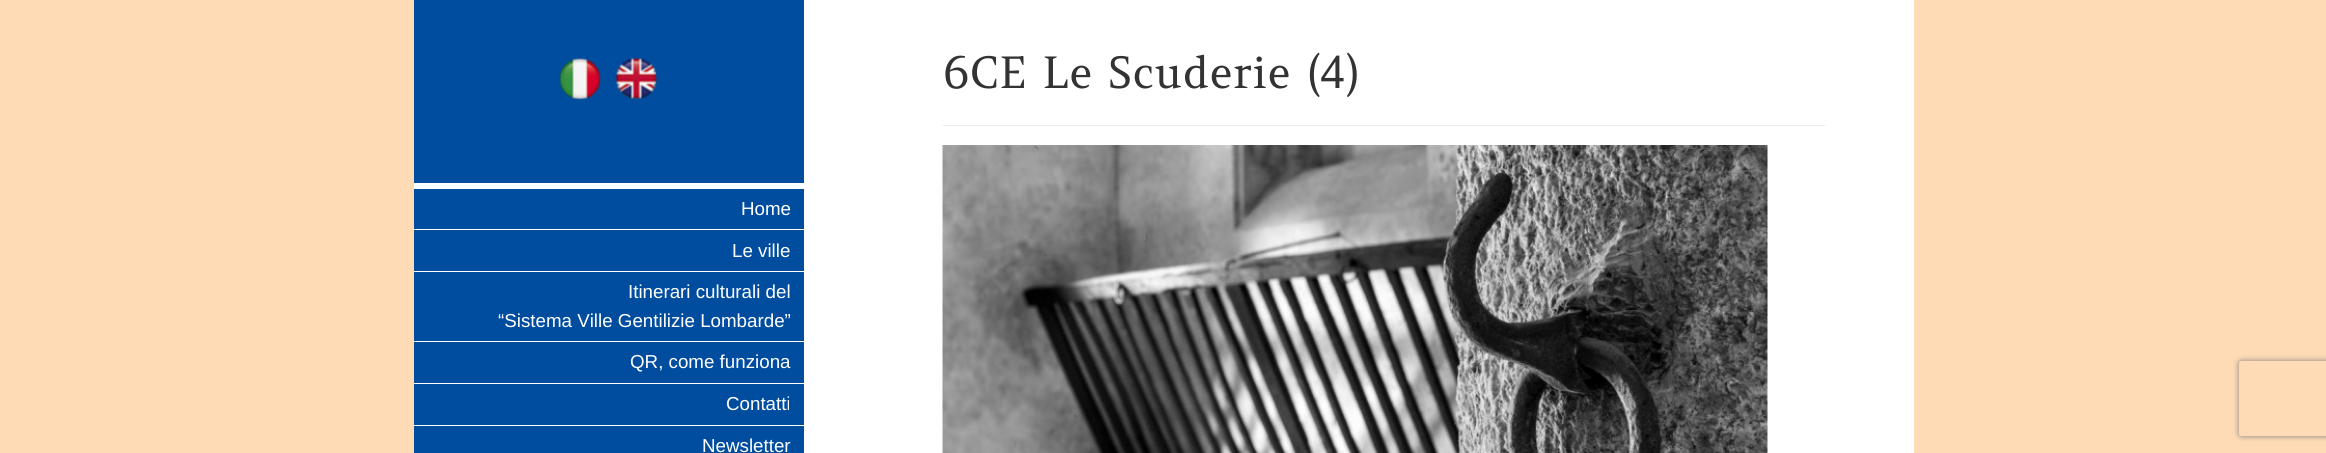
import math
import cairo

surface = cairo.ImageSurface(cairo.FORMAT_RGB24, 2326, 453)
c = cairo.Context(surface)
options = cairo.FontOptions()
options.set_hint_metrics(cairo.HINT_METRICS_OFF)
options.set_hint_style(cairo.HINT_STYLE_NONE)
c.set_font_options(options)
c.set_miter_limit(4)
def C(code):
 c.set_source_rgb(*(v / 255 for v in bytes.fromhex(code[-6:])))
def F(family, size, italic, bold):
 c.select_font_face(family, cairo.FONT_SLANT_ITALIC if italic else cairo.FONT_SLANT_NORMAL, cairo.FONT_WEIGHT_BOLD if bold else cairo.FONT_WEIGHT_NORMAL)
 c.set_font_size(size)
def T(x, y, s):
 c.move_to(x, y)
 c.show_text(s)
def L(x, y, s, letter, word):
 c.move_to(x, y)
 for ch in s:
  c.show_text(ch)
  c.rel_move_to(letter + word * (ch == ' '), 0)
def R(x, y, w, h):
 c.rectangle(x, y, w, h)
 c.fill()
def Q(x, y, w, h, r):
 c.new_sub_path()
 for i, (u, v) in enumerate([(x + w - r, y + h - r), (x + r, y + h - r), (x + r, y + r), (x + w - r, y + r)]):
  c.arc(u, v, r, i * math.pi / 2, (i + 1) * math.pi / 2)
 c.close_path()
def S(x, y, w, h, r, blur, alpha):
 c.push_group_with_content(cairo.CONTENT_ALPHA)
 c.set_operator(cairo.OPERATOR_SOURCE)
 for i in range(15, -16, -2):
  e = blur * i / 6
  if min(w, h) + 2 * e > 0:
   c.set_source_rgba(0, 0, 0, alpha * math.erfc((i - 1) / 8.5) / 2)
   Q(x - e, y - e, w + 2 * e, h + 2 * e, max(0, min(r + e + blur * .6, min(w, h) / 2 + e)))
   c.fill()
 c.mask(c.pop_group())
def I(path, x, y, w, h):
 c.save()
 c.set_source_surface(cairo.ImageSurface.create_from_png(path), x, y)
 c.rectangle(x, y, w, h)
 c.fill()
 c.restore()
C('fedbb4')
c.paint()
C('ffffff')
R(804,0,1110,453)
F('Amethysta',43.75,0,0)
C('333333')
L(943,88,'6CE Le Scuderie (4)',.6,0)
C('e9ebec')
R(943,125,882,1)
I('1.png',942,145,826,308)
C('004d9f')
R(414,0,390,453)
I('2.png',559,58,42,42)
I('3.png',615,58,42,42)
C('ffffff')
R(414,183,390,6)
F('Liberation Sans',18.75,0,0)
T(741,215,'Home')
R(414,229,390,1)
T(732,257,'Le ville')
R(414,271,390,1)
T(628,298,'Itinerari culturali del')
T(498,327,'“Sistema Ville Gentilizie Lombarde”')
R(414,341,390,1)
T(630,368,'QR, come funziona')
R(414,383,390,1)
T(726,410,'Contatti')
R(414,425,390,1)
T(702,452,'Newsletter')
c.save()
c.set_fill_rule(cairo.FILL_RULE_EVEN_ODD)
c.new_path()
c.move_to(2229,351)
c.line_to(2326,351)
c.line_to(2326,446)
c.line_to(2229,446)
c.close_path()
c.move_to(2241.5,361)
c.line_to(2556.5,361)
c.curve_to(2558,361,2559,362,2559,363.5)
c.line_to(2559,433.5)
c.curve_to(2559,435,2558,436,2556.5,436)
c.line_to(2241.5,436)
c.curve_to(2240,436,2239,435,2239,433.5)
c.line_to(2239,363.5)
c.curve_to(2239,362,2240,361,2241.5,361)
c.close_path()
c.clip()
C('808080')
S(2239,361,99,75,2.5,3,1)
c.restore()
surface.write_to_png('o.png')
